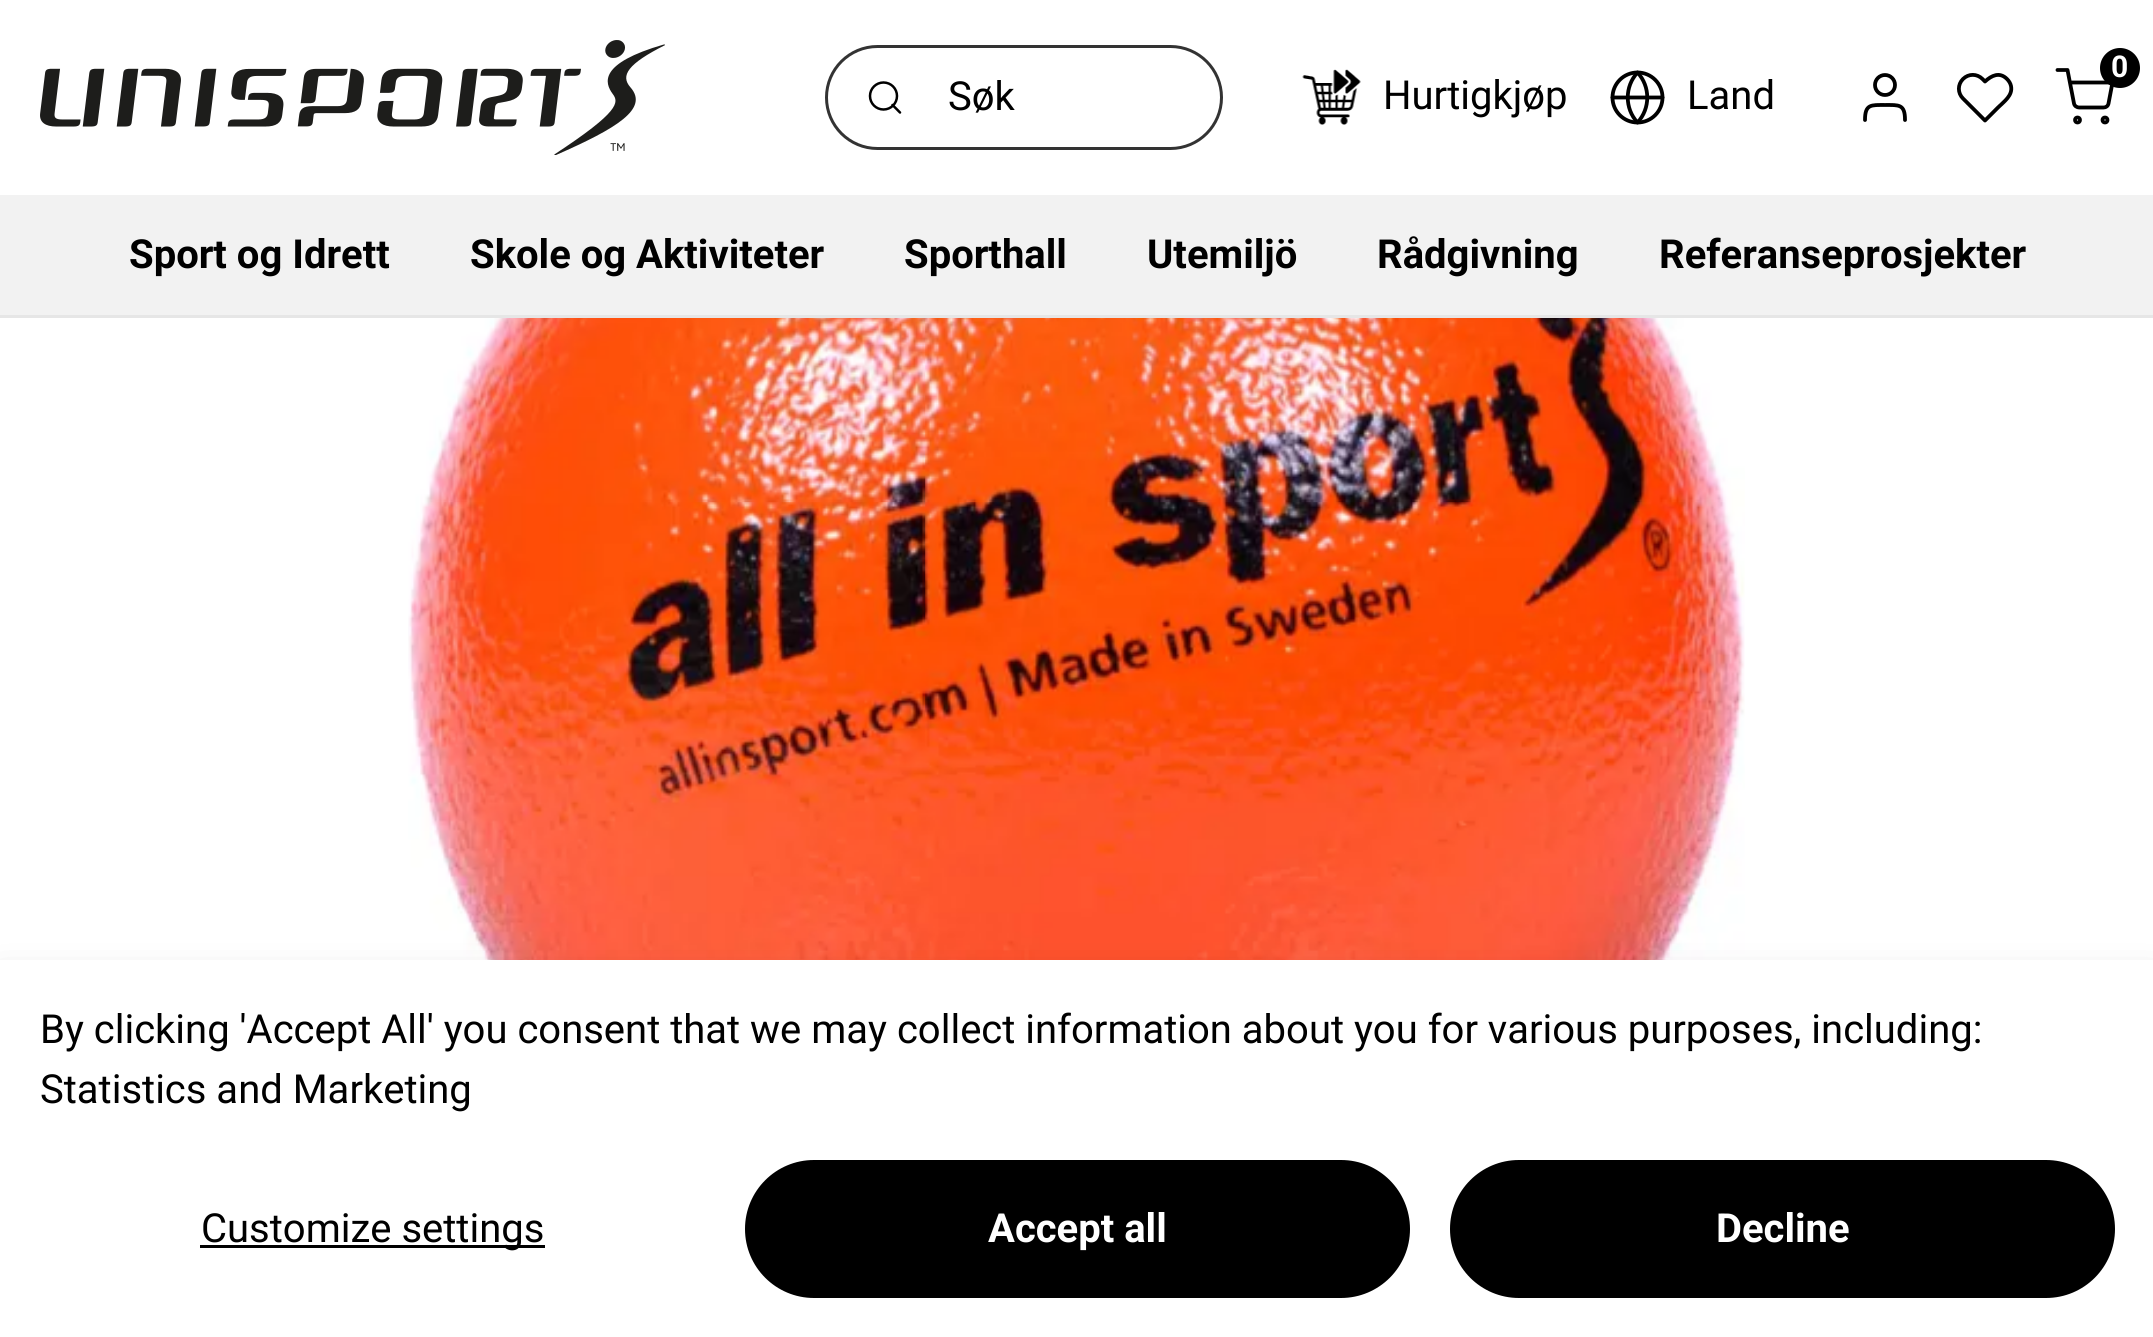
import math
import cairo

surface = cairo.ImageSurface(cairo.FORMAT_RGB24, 2153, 1337)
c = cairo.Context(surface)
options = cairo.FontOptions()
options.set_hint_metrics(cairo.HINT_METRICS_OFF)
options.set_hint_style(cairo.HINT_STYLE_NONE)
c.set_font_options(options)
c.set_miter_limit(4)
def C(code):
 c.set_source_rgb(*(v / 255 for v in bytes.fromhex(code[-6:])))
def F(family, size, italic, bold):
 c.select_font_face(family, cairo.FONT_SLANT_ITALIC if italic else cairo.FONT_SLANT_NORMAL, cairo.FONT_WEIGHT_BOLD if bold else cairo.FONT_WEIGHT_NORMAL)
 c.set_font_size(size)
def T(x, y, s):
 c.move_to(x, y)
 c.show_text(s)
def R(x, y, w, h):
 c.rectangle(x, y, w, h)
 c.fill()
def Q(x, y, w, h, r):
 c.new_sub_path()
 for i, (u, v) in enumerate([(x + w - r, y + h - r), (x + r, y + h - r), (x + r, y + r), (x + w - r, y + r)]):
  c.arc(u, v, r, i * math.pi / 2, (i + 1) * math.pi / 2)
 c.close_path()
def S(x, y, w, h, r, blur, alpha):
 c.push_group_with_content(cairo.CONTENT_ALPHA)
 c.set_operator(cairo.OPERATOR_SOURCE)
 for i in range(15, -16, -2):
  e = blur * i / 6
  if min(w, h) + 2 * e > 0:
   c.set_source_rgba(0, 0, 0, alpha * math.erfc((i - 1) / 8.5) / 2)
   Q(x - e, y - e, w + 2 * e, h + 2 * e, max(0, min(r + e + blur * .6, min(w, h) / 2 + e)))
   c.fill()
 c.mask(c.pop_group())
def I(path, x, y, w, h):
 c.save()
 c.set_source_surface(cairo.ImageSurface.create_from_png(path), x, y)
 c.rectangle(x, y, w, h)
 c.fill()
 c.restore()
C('ffffff')
c.paint()
C('e6e6e6')
R(0,315,2153,3)
I('1.png',40,40,625,115)
c.arc(2077.5,120,2.5,0,2 * math.pi)
C('000000')
c.set_line_width(3.8)
c.stroke()
c.arc(2105,120,2.5,0,2 * math.pi)
c.stroke()
c.new_path()
c.move_to(2057.5,70)
c.line_to(2067.5,70)
c.line_to(2074,103.5)
c.curve_to(2074.5,106,2077,107.5,2079,107.5)
c.line_to(2103.5,107.5)
c.curve_to(2106,107.5,2108,106,2108.5,103.5)
c.line_to(2112.5,82.5)
c.line_to(2070,82.5)
c.set_line_cap(cairo.LINE_CAP_ROUND)
c.set_line_join(cairo.LINE_JOIN_ROUND)
c.stroke()
c.arc(2120,68,20,0,2 * math.pi)
c.fill()
F('Roboto',30,0,1)
C('ffffff')
T(2111,77,'0')
c.new_path()
c.move_to(1905,120)
c.curve_to(1905,104,1899,105,1885,105)
c.curve_to(1871,105,1865,104,1865,120)
C('000000')
c.stroke()
c.arc(1885,85,10,0,2 * math.pi)
c.set_line_cap(cairo.LINE_CAP_BUTT)
c.set_line_join(cairo.LINE_JOIN_MITER)
c.stroke()
c.new_path()
c.move_to(2007,79)
c.curve_to(1999.5,71.5,1991.5,75.5,1985,81.5)
c.line_to(1982.5,79)
c.curve_to(1977,73.5,1968.5,73.5,1963,79)
c.curve_to(1957.5,84.5,1957.5,93,1963,98.5)
c.line_to(1985,120.5)
c.line_to(1998,107.5)
c.curve_to(2004,101.5,2013,95.5,2011,86)
c.curve_to(2010.5,83.5,2009,81,2007,79)
c.close_path()
c.set_line_cap(cairo.LINE_CAP_ROUND)
c.set_line_join(cairo.LINE_JOIN_ROUND)
c.stroke()
Q(826.5,46.5,395,102,51)
C('333333')
c.set_line_width(3)
c.set_line_cap(cairo.LINE_CAP_BUTT)
c.set_line_join(cairo.LINE_JOIN_MITER)
c.stroke()
c.arc(883.5,96,13.5,0,2 * math.pi)
C('000000')
c.set_line_width(2.5)
c.stroke()
c.new_path()
c.move_to(900,112.5)
c.line_to(892.5,105)
c.set_line_cap(cairo.LINE_CAP_ROUND)
c.set_line_join(cairo.LINE_JOIN_ROUND)
c.stroke()
F('Roboto',40,0,0)
T(948,110,'Søk')
I('2.png',1302,69,59,56)
T(1383,109,'Hurtigkjøp')
c.new_path()
c.arc(1637.5,97.5,25,0,2 * math.pi)
c.set_line_width(3.8)
c.set_line_cap(cairo.LINE_CAP_BUTT)
c.set_line_join(cairo.LINE_JOIN_MITER)
c.stroke()
c.new_path()
c.move_to(1612.5,97.5)
c.line_to(1662.5,97.5)
c.move_to(1637.5,72.5)
c.curve_to(1650.5,86.5,1650.5,108.5,1637.5,122.5)
c.curve_to(1624.5,108.5,1624.5,86.5,1637.5,72.5)
c.close_path()
c.set_line_cap(cairo.LINE_CAP_ROUND)
c.set_line_join(cairo.LINE_JOIN_ROUND)
c.stroke()
T(1687,109,'Land')
C('f2f2f2')
R(0,195,2153,120)
F('Roboto',40,0,1)
C('000000')
T(129,268,'Sport og Idrett')
T(470,268,'Skole og Aktiviteter')
T(904,268,'Sporthall')
T(1147,268,'Utemiljö')
T(1377,268,'Rådgivning')
T(1659,268,'Referanseprosjekter')
I('3.png',408,318,1337,642)
C('000000')
S(0,980,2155,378,0,20,.15)
C('ffffff')
R(0,960,2153,377)
F('Roboto',40,0,0)
C('000000')
T(40,1043,'By clicking \'Accept All\' you consent that we may collect information about you for various purposes, including:')
T(40,1103,'Statistics and Marketing')
R(200,1245,345,3)
T(201,1242,'Customize settings')
Q(746.5,1161.5,662,135,67.5)
c.fill_preserve()
c.set_line_width(3)
c.set_line_cap(cairo.LINE_CAP_BUTT)
c.set_line_join(cairo.LINE_JOIN_MITER)
c.stroke()
F('Roboto',40,0,1)
C('ffffff')
T(988,1242,'Accept all')
C('000000')
Q(1451.5,1161.5,662,135,67.5)
c.fill_preserve()
c.stroke()
C('ffffff')
T(1716,1242,'Decline')
surface.write_to_png('o.png')
